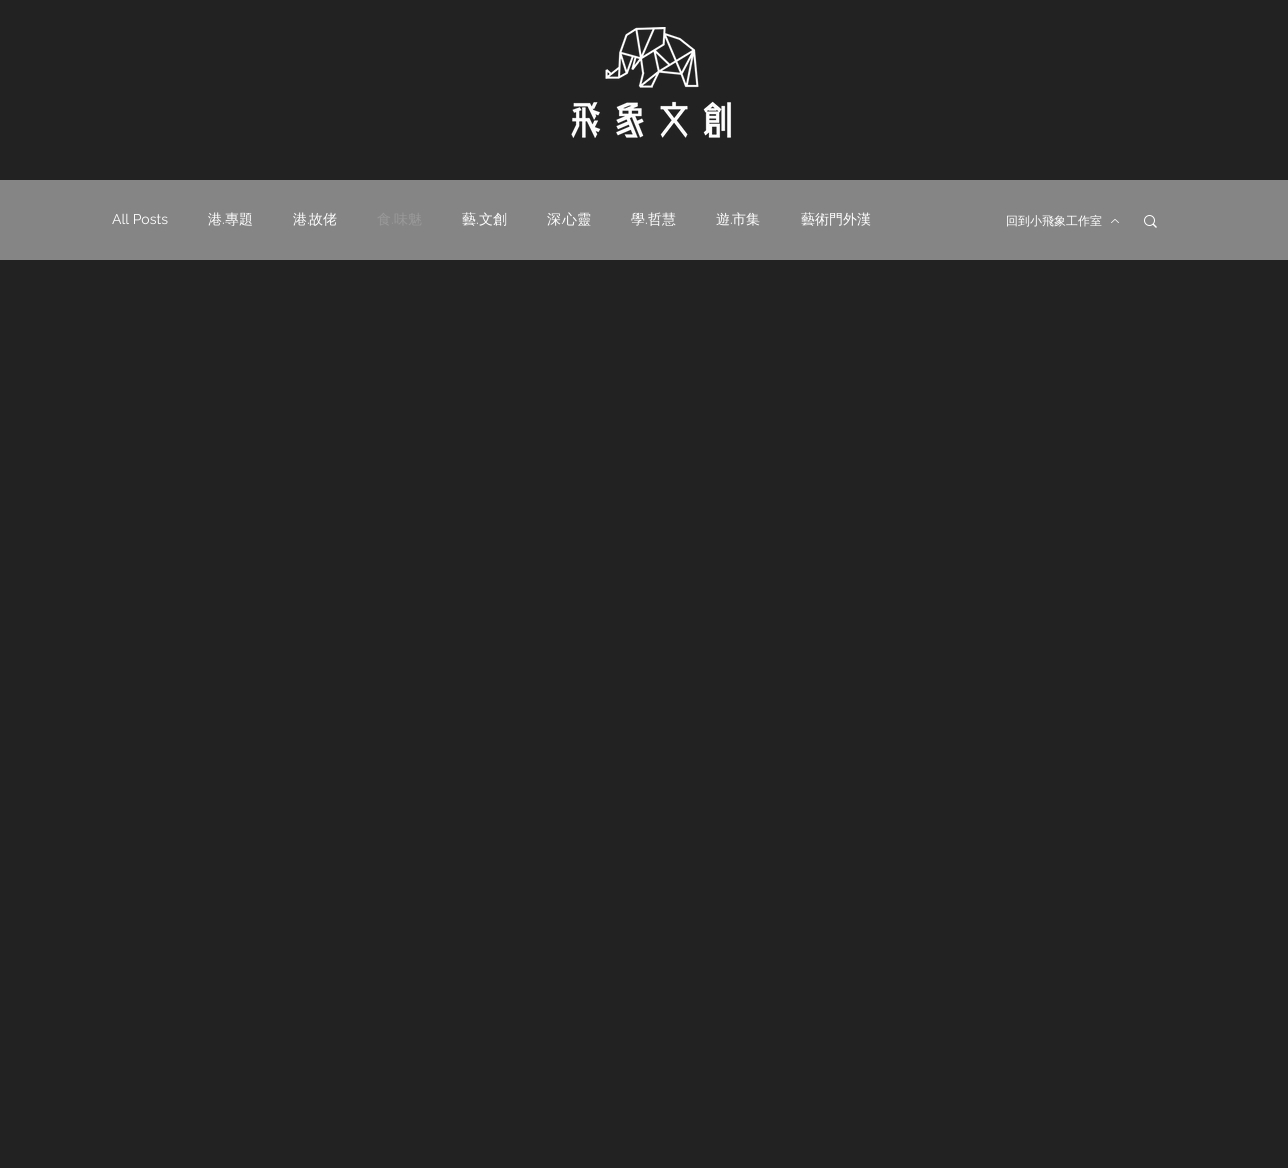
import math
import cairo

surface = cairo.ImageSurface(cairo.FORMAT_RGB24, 1288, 1168)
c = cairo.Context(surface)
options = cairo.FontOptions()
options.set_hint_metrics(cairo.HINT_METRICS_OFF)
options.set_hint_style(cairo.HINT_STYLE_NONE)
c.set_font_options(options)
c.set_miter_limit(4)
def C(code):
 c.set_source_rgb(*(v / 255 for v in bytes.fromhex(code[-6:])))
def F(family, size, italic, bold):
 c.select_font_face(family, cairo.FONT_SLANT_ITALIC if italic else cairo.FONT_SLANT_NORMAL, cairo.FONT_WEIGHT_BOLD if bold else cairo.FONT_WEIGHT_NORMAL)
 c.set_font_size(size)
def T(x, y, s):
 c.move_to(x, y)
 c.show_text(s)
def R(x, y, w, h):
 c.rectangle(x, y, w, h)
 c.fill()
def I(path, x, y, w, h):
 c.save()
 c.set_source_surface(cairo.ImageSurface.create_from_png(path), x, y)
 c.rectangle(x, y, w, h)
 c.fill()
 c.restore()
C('222222')
c.paint()
I('1.png',571,27,161,111)
C('858585')
R(0,180,1288,80)
F('Raleway',14,0,0)
C('ffffff')
T(112,224,'All Posts')
F('WenQuanYi Zen Hei Medium',14,0,0)
T(208,224,'港')
F('Raleway',14,0,0)
T(222,224,'.')
F('WenQuanYi Zen Hei Medium',14,0,0)
T(225,224,'專題')
T(293,224,'港')
F('Raleway',14,0,0)
T(307,224,'.')
F('WenQuanYi Zen Hei Medium',14,0,0)
T(309,224,'故佬')
C('999999')
T(377,224,'食')
F('Raleway',14,0,0)
T(391,224,'.')
F('WenQuanYi Zen Hei Medium',14,0,0)
T(394,224,'味魅')
C('ffffff')
T(462,224,'藝')
F('Raleway',14,0,0)
T(476,224,'.')
F('WenQuanYi Zen Hei Medium',14,0,0)
T(479,224,'文創')
T(547,224,'深')
F('Raleway',14,0,0)
T(561,224,'.')
F('WenQuanYi Zen Hei Medium',14,0,0)
T(563,224,'心靈')
T(631,224,'學')
F('Raleway',14,0,0)
T(645,224,'.')
F('WenQuanYi Zen Hei Medium',14,0,0)
T(648,224,'哲慧')
T(716,224,'遊')
F('Raleway',14,0,0)
T(730,224,'.')
F('WenQuanYi Zen Hei Medium',14,0,0)
T(732,224,'市集')
T(801,224,'藝術門外漢')
I('2.png',1144,215,13,13)
F('WenQuanYi Zen Hei Medium',12,0,0)
T(1006,225,'回到小飛象工作室')
I('3.png',1111,219,8,4)
surface.write_to_png('o.png')
